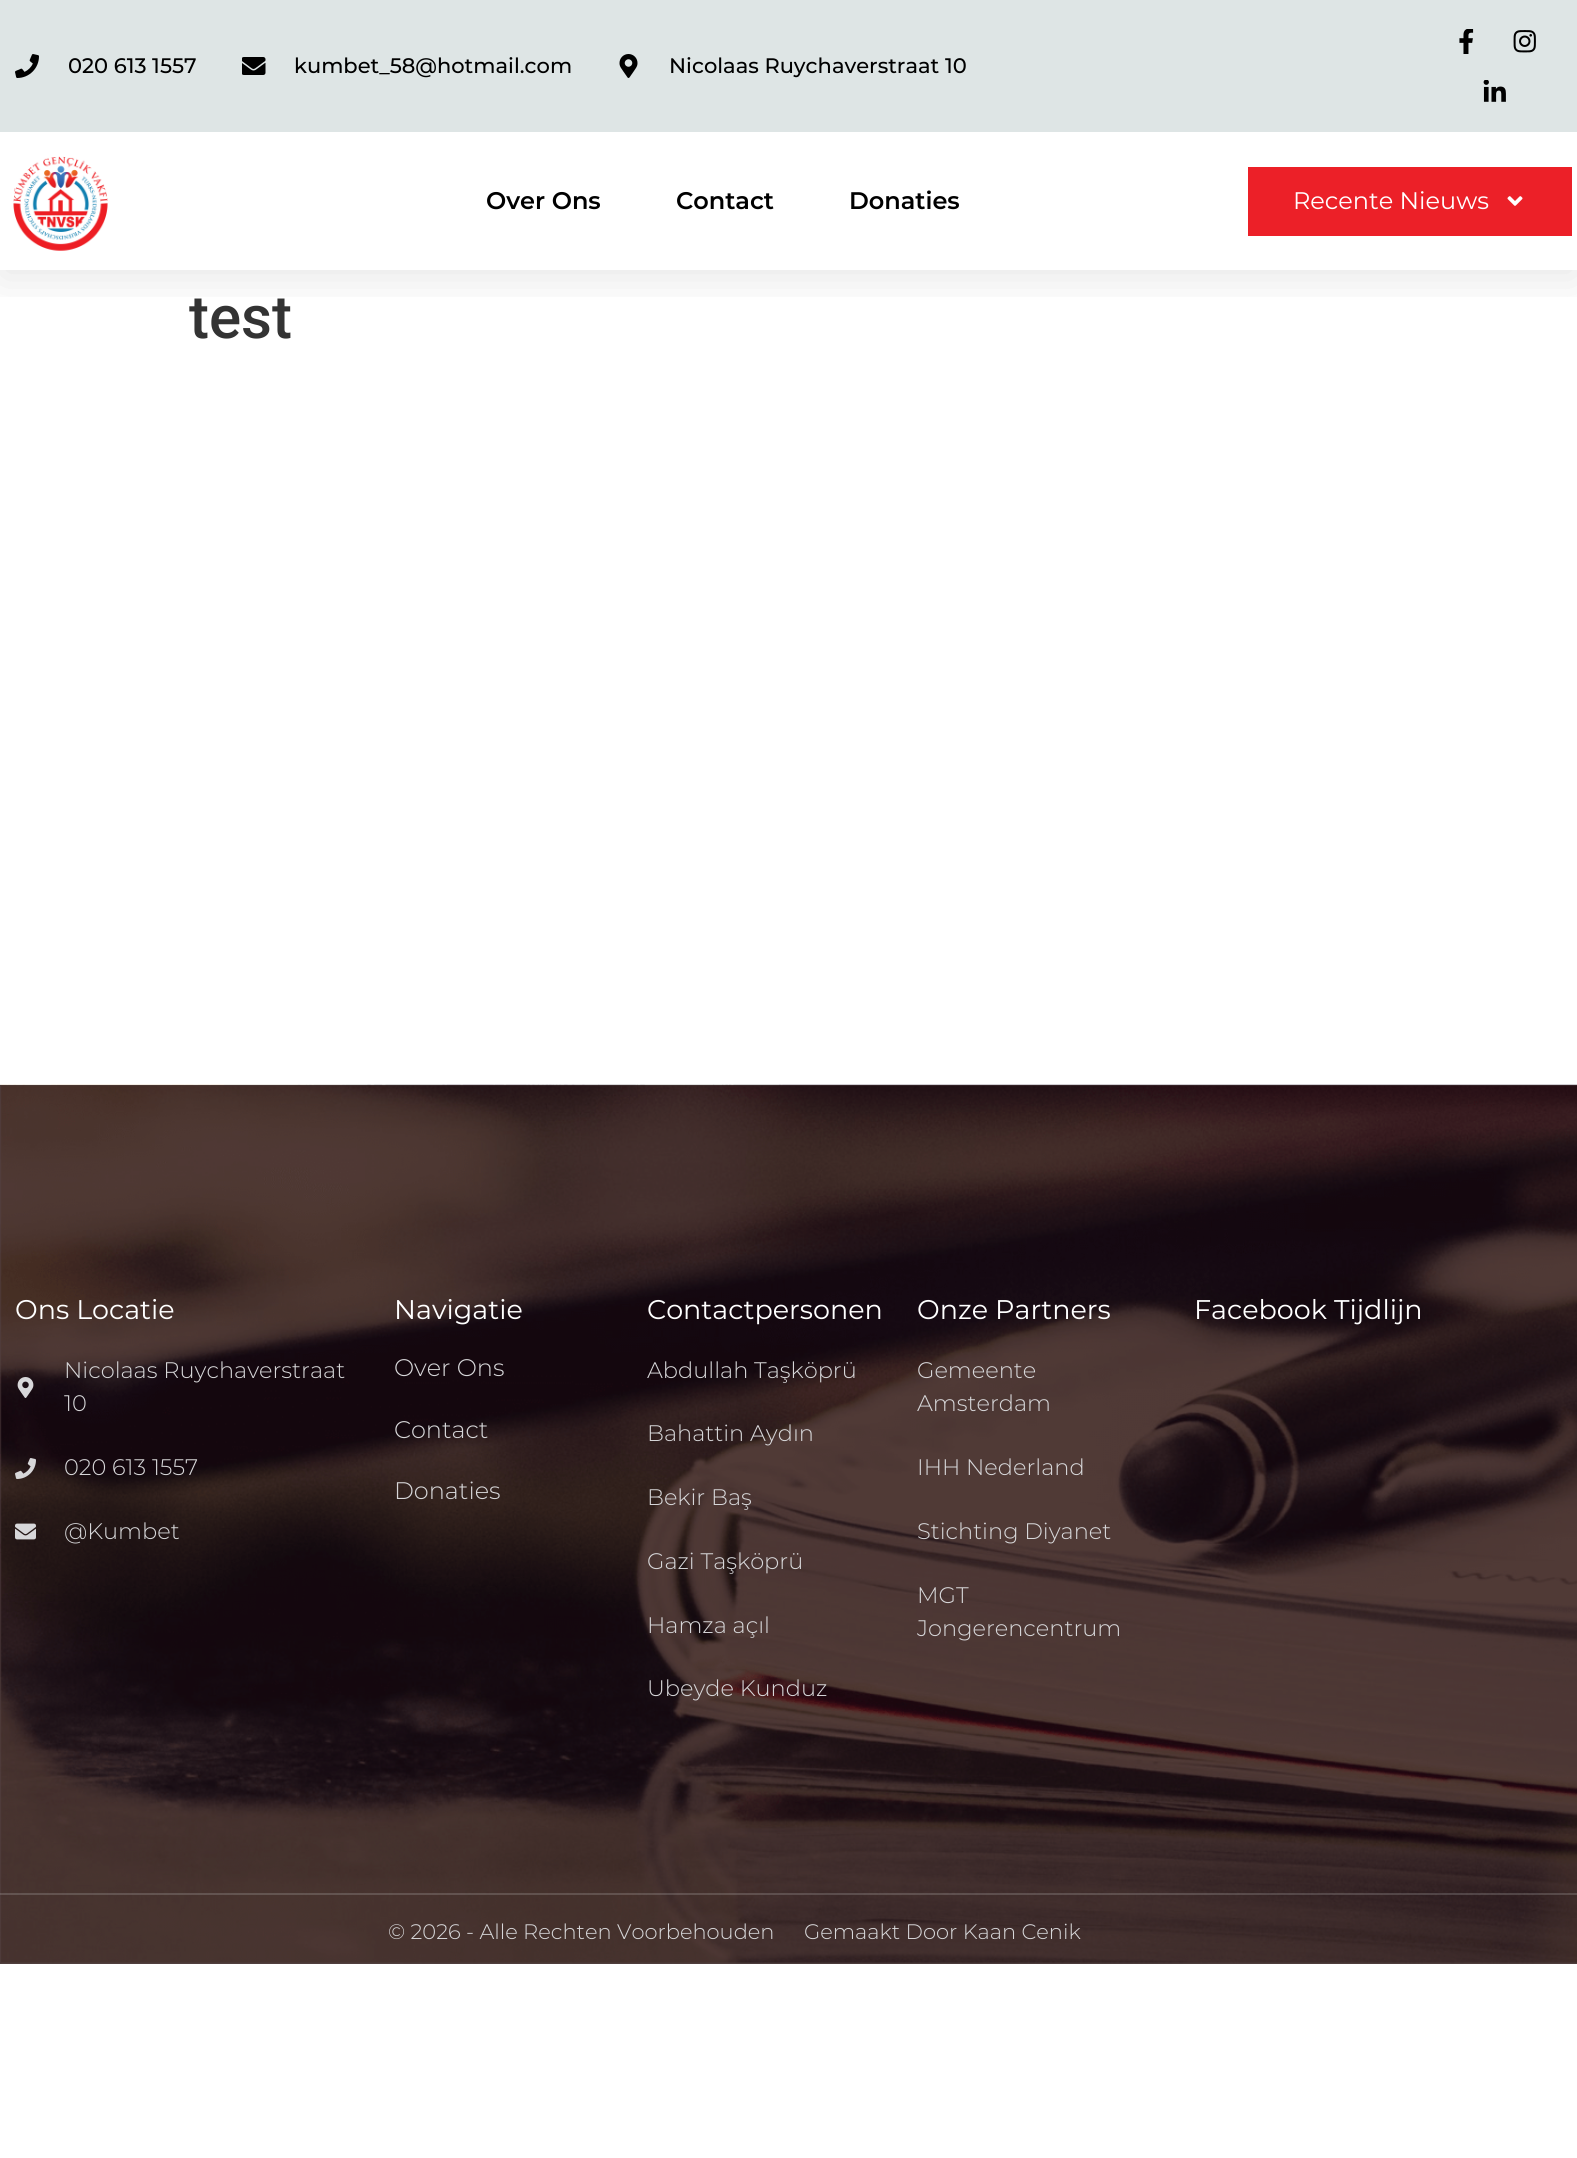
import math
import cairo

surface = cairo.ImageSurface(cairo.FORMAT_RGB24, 1577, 2158)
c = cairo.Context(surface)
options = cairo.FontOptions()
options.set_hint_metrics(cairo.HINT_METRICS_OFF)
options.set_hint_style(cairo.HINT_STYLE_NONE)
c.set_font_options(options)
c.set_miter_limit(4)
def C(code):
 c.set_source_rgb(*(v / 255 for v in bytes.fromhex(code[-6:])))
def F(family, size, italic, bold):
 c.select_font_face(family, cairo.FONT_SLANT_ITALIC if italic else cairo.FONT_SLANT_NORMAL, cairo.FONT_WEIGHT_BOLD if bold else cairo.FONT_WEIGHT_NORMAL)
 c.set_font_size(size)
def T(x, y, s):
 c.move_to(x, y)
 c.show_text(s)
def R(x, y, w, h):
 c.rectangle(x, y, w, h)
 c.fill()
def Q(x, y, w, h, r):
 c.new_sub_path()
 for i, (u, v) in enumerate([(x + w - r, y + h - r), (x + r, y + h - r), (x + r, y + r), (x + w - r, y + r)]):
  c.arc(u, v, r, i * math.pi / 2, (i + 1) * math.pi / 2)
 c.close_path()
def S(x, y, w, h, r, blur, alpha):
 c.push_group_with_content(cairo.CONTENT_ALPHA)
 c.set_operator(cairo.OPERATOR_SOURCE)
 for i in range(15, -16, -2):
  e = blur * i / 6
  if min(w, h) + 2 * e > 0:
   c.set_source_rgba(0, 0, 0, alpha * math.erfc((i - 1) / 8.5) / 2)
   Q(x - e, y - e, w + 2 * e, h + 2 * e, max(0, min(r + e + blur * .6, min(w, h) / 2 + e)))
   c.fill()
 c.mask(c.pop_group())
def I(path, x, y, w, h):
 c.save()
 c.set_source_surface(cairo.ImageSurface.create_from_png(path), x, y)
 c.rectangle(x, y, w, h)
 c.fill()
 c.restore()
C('ffffff')
c.paint()
C('534243')
R(0,1085,1577,879)
c.save()
c.rectangle(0,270,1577,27)
c.clip()
C('000000')
S(0,8,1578,270,0,22.5,.1)
c.restore()
C('dee5e5')
R(0,0,1577,132)
I('1.png',15,54,24,24)
F('Montserrat Medium',21,0,0)
C('000000')
T(68,73,'020 613 1557')
I('2.png',242,57,24,18)
T(294,73,'kumbet_58@hotmail.com')
I('3.png',619,54,19,24)
T(669,73,'Nicolaas Ruychaverstraat 10')
I('4.png',1459,29,15,25)
I('5.png',1513,30,23,23)
I('6.png',1483,80,23,22)
I('7.png',13,156,95,95)
F('Montserrat SemiBold',24,0,0)
T(486,209,'Over Ons')
T(676,209,'Contact')
T(849,209,'Donaties')
C('ec2028')
R(1248,167,324,69)
F('Montserrat',24,0,0)
C('ffffff')
T(1293,209,'Recente Nieuws')
I('8.png',1507,196,16,10)
F('Roboto Medium',60,0,0)
C('333333')
T(189,338,'test')
I('9.png',0,1084,1577,880)
F('Montserrat',27,0,0)
C('ffffff')
T(15,1319,'Ons Locatie')
I('10.png',17,1377,17,21)
F('Montserrat Light',22.5,0,0)
C('d7d7d9')
T(64,1378,'Nicolaas Ruychaverstraat')
T(64,1411,'10')
I('11.png',15,1458,21,21)
T(64,1475,'020 613 1557')
I('12.png',15,1523,21,17)
T(64,1539,'@Kumbet')
F('Montserrat',27,0,0)
C('ffffff')
T(394,1319,'Navigatie')
F('Montserrat Light',24,0,0)
C('d7d7d9')
T(394,1376,'Over Ons')
T(394,1438,'Contact')
T(394,1499,'Donaties')
F('Montserrat',27,0,0)
C('ffffff')
T(647,1319,'Contactpersonen')
F('Montserrat Light',22.5,0,0)
C('d7d7d9')
T(647,1378,'Abdullah Taşköprü')
T(647,1441,'Bahattin Aydın')
T(647,1505,'Bekir Baş')
T(647,1569,'Gazi Taşköprü')
T(647,1633,'Hamza açıl')
T(647,1696,'Ubeyde Kunduz')
F('Montserrat',27,0,0)
C('ffffff')
T(917,1319,'Onze Partners')
F('Montserrat Light',22.5,0,0)
C('d7d7d9')
T(917,1378,'Gemeente')
T(917,1411,'Amsterdam')
T(917,1475,'IHH Nederland')
T(917,1539,'Stichting Diyanet')
T(917,1603,'MGT')
T(917,1636,'Jongerencentrum')
F('Montserrat',27,0,0)
C('ffffff')
T(1194,1319,'Facebook Tijdlijn')
c.set_source_rgba(0.788,0.788,0.788,0.22)
R(0,1893,1577,2)
F('Montserrat Light',21,0,0)
C('d7d7d9')
T(388,1939,'© 2026 - Alle Rechten Voorbehouden')
T(804,1939,'Gemaakt Door Kaan Cenik')
surface.write_to_png('o.png')
